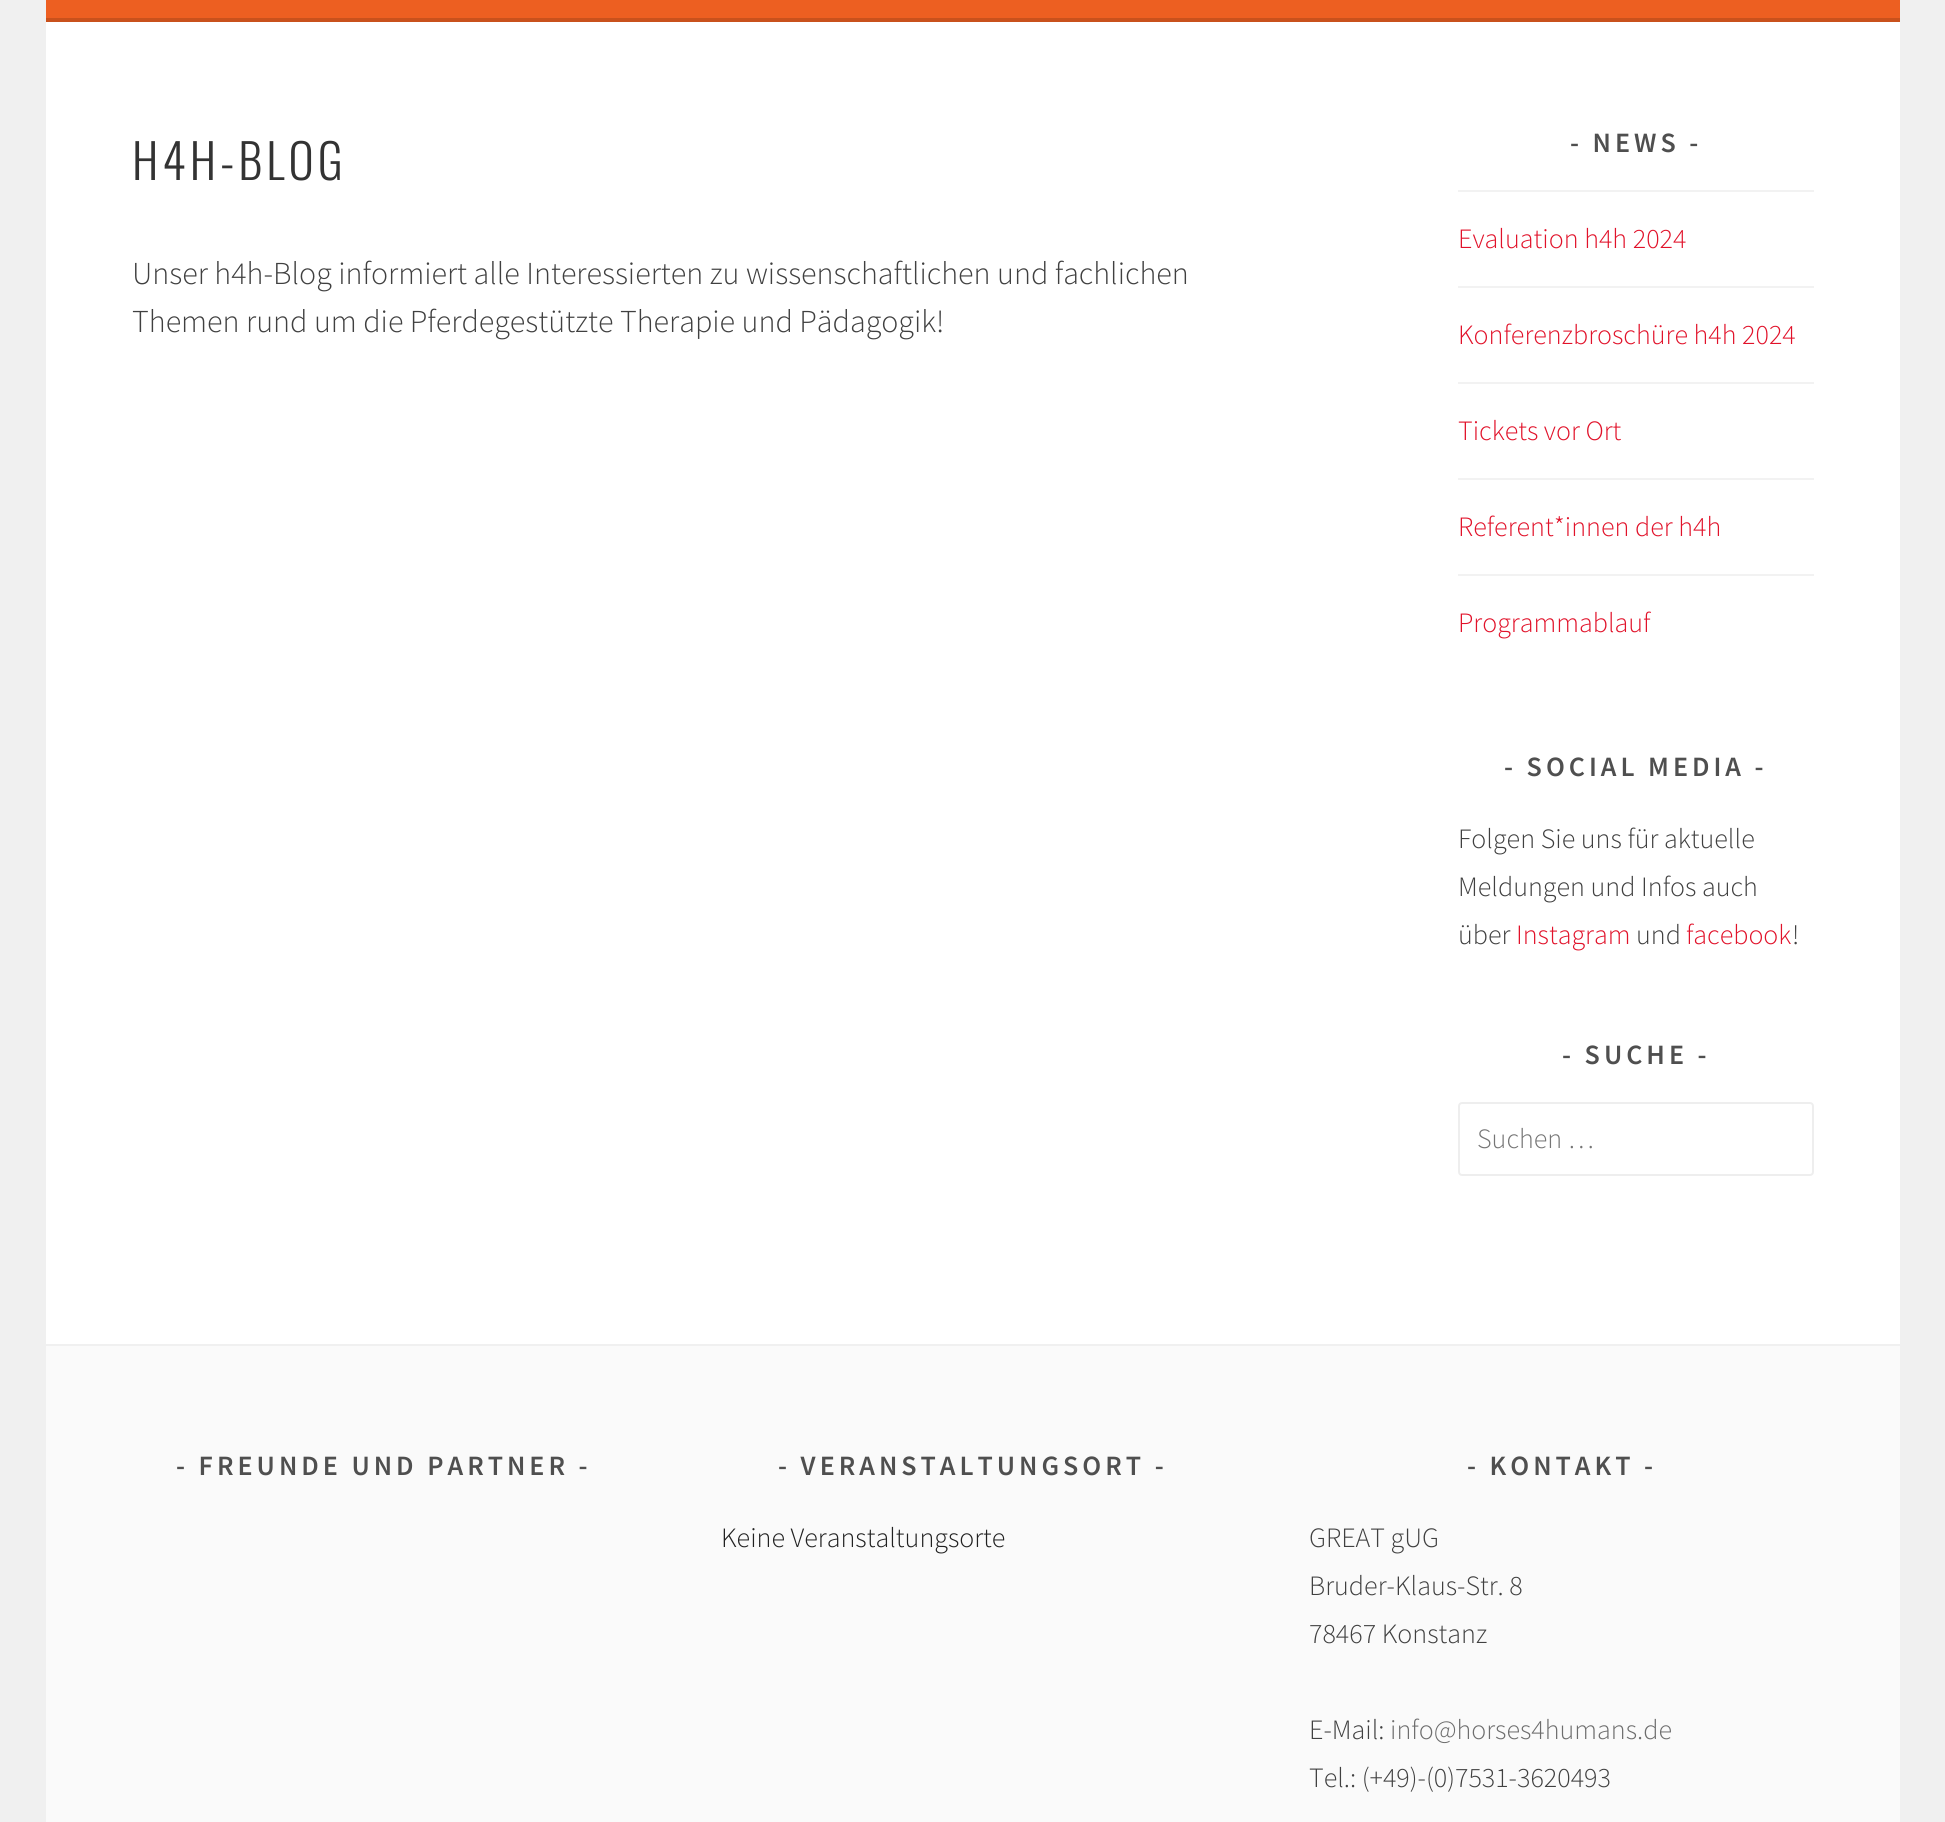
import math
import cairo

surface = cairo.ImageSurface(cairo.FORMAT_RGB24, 1945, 1822)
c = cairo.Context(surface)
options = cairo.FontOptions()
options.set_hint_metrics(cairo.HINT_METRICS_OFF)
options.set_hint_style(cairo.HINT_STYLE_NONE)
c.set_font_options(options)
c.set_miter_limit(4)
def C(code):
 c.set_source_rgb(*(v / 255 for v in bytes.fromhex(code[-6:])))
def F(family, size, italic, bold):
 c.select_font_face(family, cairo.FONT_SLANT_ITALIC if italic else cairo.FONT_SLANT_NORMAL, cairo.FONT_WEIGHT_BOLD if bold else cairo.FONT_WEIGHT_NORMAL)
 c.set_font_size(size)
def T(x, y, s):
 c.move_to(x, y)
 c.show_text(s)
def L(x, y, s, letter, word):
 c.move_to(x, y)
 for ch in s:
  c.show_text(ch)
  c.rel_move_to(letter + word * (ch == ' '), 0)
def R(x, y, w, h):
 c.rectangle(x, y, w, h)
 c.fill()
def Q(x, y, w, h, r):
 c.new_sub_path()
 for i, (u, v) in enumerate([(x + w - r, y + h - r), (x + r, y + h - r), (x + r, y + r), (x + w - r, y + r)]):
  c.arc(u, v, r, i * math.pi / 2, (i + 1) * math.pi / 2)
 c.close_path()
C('f0f0f0')
c.paint()
C('ed5f21')
R(46,0,1854,18)
C('c9511c')
R(46,18,1854,4)
C('ffffff')
R(46,22,1854,1322)
F('Oswald Light',48,0,0)
C('333333')
L(132,180,'H4H-BLOG',4,0)
F('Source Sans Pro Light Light',32,0,0)
C('404040')
T(132,284,'Unser h4h-Blog informiert alle Interessierten zu wissenschaftlichen und fachlichen')
T(132,332,'Themen rund um die Pferdegestützte Therapie und Pädagogik!')
F('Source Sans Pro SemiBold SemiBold',28,0,0)
C('4f4f4f')
L(1570,152,'- NEWS -',4,0)
C('f2f2f2')
R(1458,190,356,2)
F('Source Sans Pro Light Light',28,0,0)
C('e1122a')
T(1458,248,'Evaluation h4h 2024')
C('f2f2f2')
R(1458,286,356,2)
C('e1122a')
T(1458,344,'Konferenzbroschüre h4h 2024')
C('f2f2f2')
R(1458,382,356,2)
C('e1122a')
T(1458,440,'Tickets vor Ort')
C('f2f2f2')
R(1458,478,356,2)
C('e1122a')
T(1458,536,'Referent*innen der h4h')
C('f2f2f2')
R(1458,574,356,2)
C('e1122a')
T(1458,632,'Programmablauf')
F('Source Sans Pro SemiBold SemiBold',28,0,0)
C('4f4f4f')
L(1504,776,'- SOCIAL MEDIA -',4,0)
F('Source Sans Pro Light Light',28,0,0)
C('404040')
T(1458,848,'Folgen Sie uns für aktuelle')
T(1458,896,'Meldungen und Infos auch')
T(1458,944,'über')
C('e1122a')
T(1516,944,'Instagram')
C('404040')
T(1636,944,'und')
C('e1122a')
T(1686,944,'facebook')
C('404040')
T(1792,944,'!')
F('Source Sans Pro SemiBold SemiBold',28,0,0)
C('4f4f4f')
L(1562,1064,'- SUCHE -',4,0)
Q(1459,1103,354,72,3)
C('eeeeee')
c.stroke()
F('Source Sans Pro Light Light',28,0,0)
C('757575')
T(1477,1148,'Suchen …')
C('fafafa')
R(46,1346,1854,476)
F('Source Sans Pro SemiBold SemiBold',28,0,0)
C('4f4f4f')
L(176,1475,'- FREUNDE UND PARTNER -',4,0)
L(778,1475,'- VERANSTALTUNGSORT -',4,0)
F('Source Sans Pro Light Light',28,0,0)
C('212121')
T(721,1547,'Keine Veranstaltungsorte')
F('Source Sans Pro SemiBold SemiBold',28,0,0)
C('4f4f4f')
L(1467,1475,'- KONTAKT -',4,0)
F('Source Sans Pro Light Light',28,0,0)
C('404040')
T(1309,1547,'GREAT gUG')
T(1309,1595,'Bruder-Klaus-Str. 8')
T(1309,1643,'78467 Konstanz')
T(1309,1739,'E-Mail:')
C('6d6d6d')
T(1390,1739,'info@horses4humans.de')
C('404040')
T(1309,1787,'Tel.: (+49)-(0)7531-3620493')
surface.write_to_png('o.png')
